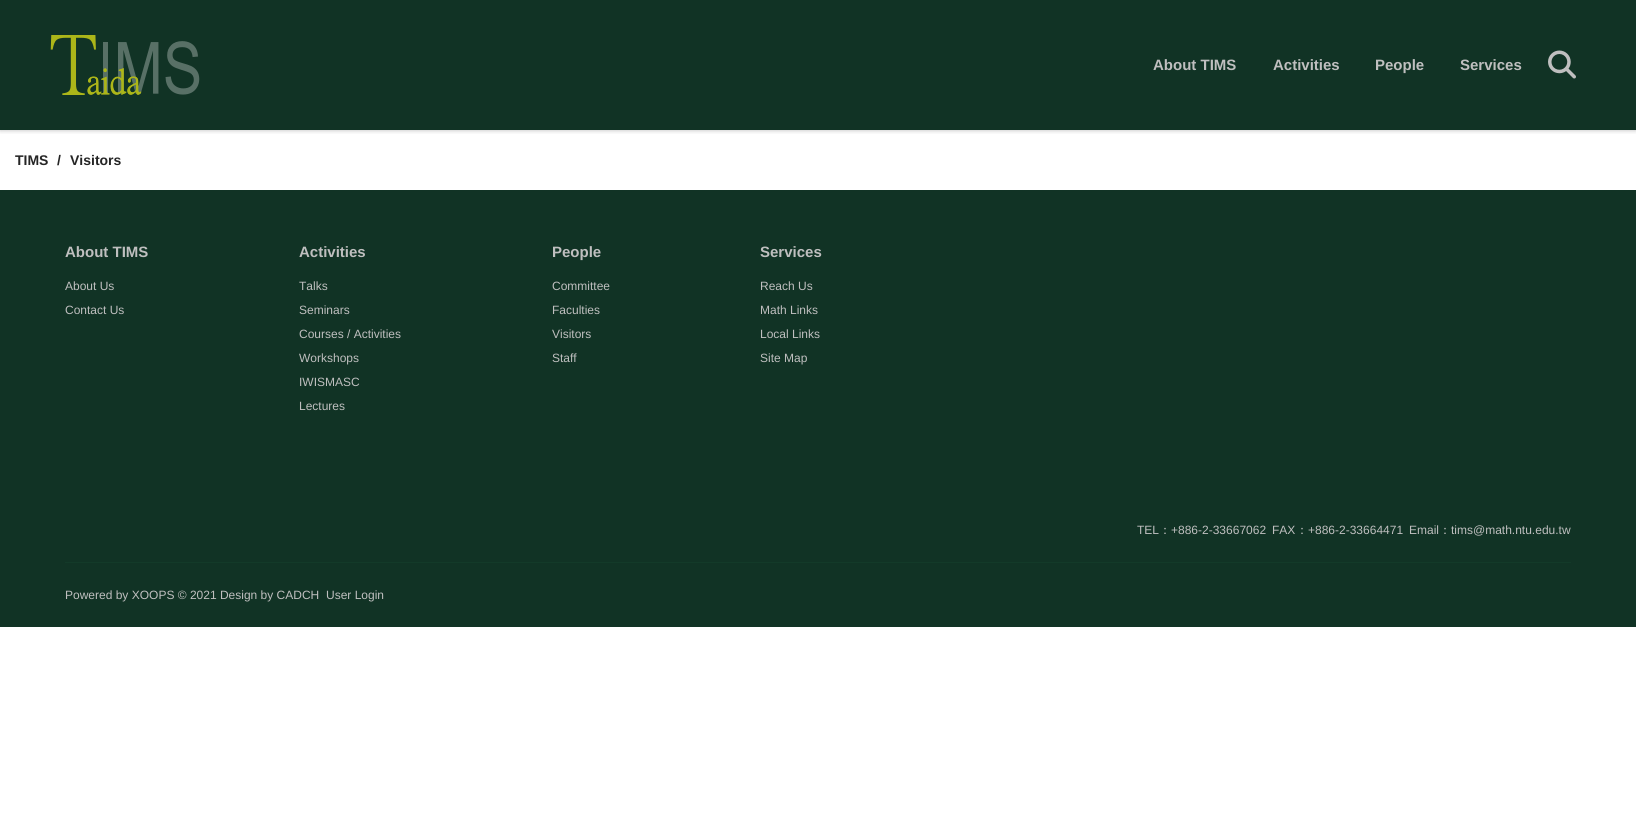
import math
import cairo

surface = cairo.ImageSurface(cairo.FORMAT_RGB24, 1636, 826)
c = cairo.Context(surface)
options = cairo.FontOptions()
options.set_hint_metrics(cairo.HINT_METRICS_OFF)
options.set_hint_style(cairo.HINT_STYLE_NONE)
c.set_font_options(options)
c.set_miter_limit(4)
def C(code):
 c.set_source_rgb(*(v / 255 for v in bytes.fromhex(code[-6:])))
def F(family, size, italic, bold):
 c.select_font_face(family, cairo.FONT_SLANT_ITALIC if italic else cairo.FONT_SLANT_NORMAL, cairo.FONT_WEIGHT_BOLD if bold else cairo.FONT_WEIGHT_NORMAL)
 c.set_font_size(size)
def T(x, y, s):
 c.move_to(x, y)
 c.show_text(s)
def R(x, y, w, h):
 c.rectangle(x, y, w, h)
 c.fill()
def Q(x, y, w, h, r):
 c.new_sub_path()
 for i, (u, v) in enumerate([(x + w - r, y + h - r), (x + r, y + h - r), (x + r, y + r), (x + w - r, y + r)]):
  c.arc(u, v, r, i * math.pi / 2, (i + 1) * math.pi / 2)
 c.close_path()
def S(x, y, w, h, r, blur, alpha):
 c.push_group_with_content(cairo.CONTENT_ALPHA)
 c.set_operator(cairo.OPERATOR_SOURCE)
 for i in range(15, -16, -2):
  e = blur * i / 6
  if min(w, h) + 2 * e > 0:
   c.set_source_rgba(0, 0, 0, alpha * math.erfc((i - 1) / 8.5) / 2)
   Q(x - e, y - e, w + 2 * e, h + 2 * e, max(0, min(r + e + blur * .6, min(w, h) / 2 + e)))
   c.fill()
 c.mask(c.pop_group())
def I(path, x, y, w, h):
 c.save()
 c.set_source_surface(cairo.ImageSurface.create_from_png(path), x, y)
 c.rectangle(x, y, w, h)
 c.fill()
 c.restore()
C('ffffff')
c.paint()
C('113325')
R(0,0,1636,130)
c.save()
c.rectangle(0,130,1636,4)
c.clip()
C('000000')
S(0,1,1636,130,0,2,.2)
c.restore()
I('1.png',50,35,150,60)
F('Liberation Sans',15,0,1)
C('bfbfbf')
T(1153,70,'About TIMS')
T(1273,70,'Activities')
T(1375,70,'People')
T(1460,70,'Services')
I('2.png',1548,50,28,29)
F('Liberation Sans',14,0,1)
C('252525')
T(15,165,'TIMS')
T(57,165,'/')
T(70,165,'Visitors')
C('113325')
R(0,190,1636,437)
F('Liberation Sans',15,0,1)
C('bfbfbf')
T(65,257,'About TIMS')
F('Liberation Sans',12,0,0)
T(65,290,'About Us')
T(65,314,'Contact Us')
F('Liberation Sans',15,0,1)
T(299,257,'Activities')
F('Liberation Sans',12,0,0)
T(299,290,'Talks')
T(299,314,'Seminars')
T(299,338,'Courses / Activities')
T(299,362,'Workshops')
T(299,386,'IWISMASC')
T(299,410,'Lectures')
F('Liberation Sans',15,0,1)
T(552,257,'People')
F('Liberation Sans',12,0,0)
T(552,290,'Committee')
T(552,314,'Faculties')
T(552,338,'Visitors')
T(552,362,'Staff')
F('Liberation Sans',15,0,1)
T(760,257,'Services')
F('Liberation Sans',12,0,0)
T(760,290,'Reach Us')
T(760,314,'Math Links')
T(760,338,'Local Links')
T(760,362,'Site Map')
T(1137,534,'TEL')
F('WenQuanYi Zen Hei Medium',12,0,0)
T(1159,534,'：')
F('Liberation Sans',12,0,0)
T(1171,534,'+886-2-33667062')
T(1272,534,'FAX')
F('WenQuanYi Zen Hei Medium',12,0,0)
T(1296,534,'：')
F('Liberation Sans',12,0,0)
T(1308,534,'+886-2-33664471')
T(1409,534,'Email')
F('WenQuanYi Zen Hei Medium',12,0,0)
T(1439,534,'：')
F('Liberation Sans',12,0,0)
T(1451,534,'tims@math.ntu.edu.tw')
C('133a29')
R(65,562,1506,1)
C('bfbfbf')
T(65,599,'Powered by XOOPS © 2021 Design by CADCH')
T(326,599,'User Login')
surface.write_to_png('o.png')
